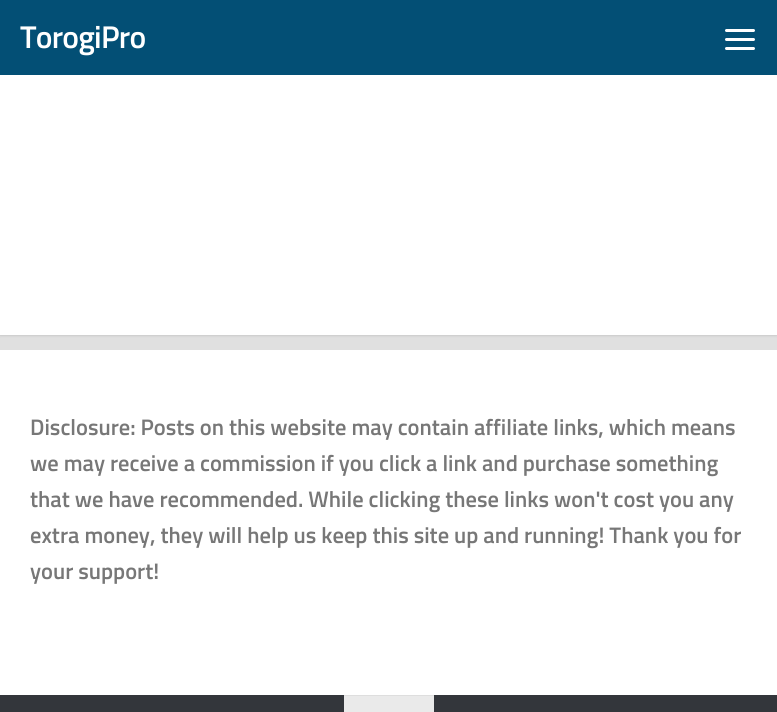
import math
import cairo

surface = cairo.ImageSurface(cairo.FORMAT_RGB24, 777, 712)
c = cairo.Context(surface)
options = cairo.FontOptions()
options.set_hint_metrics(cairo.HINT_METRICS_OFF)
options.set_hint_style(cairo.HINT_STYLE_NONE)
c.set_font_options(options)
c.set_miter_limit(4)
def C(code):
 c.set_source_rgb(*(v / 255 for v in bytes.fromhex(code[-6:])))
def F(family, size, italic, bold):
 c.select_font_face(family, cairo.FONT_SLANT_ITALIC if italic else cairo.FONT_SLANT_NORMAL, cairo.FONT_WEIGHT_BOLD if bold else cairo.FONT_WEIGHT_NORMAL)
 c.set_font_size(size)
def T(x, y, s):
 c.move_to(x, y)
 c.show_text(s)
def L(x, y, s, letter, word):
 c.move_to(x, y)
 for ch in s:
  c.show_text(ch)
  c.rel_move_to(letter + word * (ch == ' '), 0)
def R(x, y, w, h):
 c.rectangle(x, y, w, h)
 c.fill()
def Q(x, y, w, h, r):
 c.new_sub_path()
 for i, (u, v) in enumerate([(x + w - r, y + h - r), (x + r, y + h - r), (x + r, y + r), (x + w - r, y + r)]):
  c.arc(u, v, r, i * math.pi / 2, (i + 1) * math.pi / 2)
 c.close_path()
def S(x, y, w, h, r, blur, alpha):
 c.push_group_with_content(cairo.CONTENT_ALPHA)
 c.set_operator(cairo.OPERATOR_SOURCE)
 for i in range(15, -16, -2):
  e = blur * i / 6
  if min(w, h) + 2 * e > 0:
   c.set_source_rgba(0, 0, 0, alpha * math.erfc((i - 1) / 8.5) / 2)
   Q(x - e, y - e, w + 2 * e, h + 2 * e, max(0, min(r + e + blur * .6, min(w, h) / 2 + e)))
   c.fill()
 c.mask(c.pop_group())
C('e0e0e0')
c.paint()
C('000000')
S(0,-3,777,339,0,1,.1)
C('ffffff')
R(0,75,777,260)
C('034f75')
R(0,0,777,75)
F('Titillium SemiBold',31.5,0,0)
C('ffffff')
L(20,48,'TorogiPro',-.75,0)
Q(725,29,30,3,1.5)
c.fill()
Q(725,38,30,3,1.5)
c.fill()
Q(725,47,30,3,1.5)
c.fill()
R(0,350,777,345)
F('Titillium SemiBold',22.5,0,0)
C('777777')
T(30,435,'Disclosure: Posts on this website may contain affiliate links, which means')
T(30,471,'we may receive a commission if you click a link and purchase something')
T(30,507,'that we have recommended. While clicking these links won\'t cost you any')
T(30,543,'extra money, they will help us keep this site up and running! Thank you for')
T(30,579,'your support!')
C('33363b')
R(0,695,777,17)
C('eaeaea')
R(344,696,90,16)
C('dedede')
R(344,695,90,1)
surface.write_to_png('o.png')
